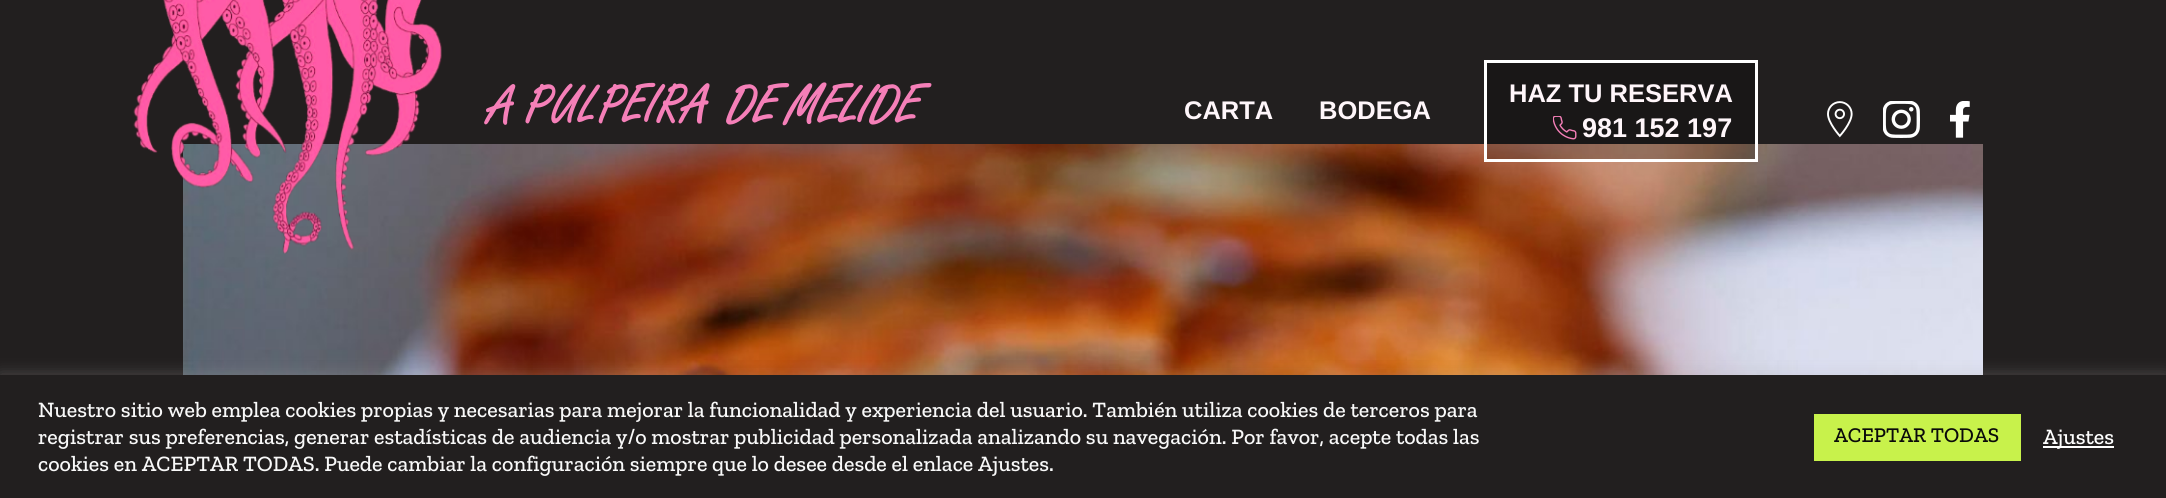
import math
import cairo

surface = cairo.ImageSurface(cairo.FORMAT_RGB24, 2166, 498)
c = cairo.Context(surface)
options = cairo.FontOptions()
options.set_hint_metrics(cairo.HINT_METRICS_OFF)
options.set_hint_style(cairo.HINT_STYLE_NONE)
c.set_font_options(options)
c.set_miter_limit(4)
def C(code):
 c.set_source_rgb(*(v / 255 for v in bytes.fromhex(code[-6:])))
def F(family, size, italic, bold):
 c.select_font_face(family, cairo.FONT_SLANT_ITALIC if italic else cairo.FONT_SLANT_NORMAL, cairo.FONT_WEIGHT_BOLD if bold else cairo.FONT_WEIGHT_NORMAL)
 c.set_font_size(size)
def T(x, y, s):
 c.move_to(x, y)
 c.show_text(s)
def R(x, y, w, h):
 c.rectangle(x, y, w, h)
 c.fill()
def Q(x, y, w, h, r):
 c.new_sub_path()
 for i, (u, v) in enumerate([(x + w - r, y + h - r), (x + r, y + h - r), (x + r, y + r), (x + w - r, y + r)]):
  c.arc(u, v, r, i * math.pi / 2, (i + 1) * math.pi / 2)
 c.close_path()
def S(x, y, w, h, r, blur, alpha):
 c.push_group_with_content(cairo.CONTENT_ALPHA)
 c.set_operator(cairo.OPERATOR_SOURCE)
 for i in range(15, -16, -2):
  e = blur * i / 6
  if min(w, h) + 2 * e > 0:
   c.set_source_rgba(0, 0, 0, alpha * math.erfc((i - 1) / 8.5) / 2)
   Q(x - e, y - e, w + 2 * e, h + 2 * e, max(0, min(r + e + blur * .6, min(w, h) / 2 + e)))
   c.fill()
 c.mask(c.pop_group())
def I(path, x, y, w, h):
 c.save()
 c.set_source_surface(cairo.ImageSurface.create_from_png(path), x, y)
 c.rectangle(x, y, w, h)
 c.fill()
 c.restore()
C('221f1f')
c.paint()
I('7.png',183,144,1800,231)
I('1.png',133,0,309,254)
I('2.png',484,82,448,44)
F('Liberation Sans',25.5,0,1)
C('fff6fa')
T(1184,119,'CARTA')
T(1319,119,'BODEGA')
c.set_source_rgba(0,0,0,0.25)
c.rectangle(1485.5,61.5,271,99)
c.fill_preserve()
C('ffffff')
c.set_line_width(3)
c.stroke()
C('fff6fa')
T(1509,102,'HAZ TU RESERVA')
I('3.png',1553,116,24,24)
F('Liberation Sans',27,0,1)
T(1582,137,'981 152 197')
I('4.png',1827,101,26,37)
I('5.png',1883,101,37,37)
I('6.png',1950,101,20,37)
C('acabab')
S(0,374,2166,123,0,7.5,.3)
C('221f1f')
R(0,375,2166,123)
F('Zilla Slab Medium',22,0,0)
C('f9f9f9')
T(38,417,'Nuestro sitio web emplea cookies propias y necesarias para mejorar la funcionalidad y experiencia del usuario. También utiliza cookies de terceros para')
T(38,444,'registrar sus preferencias, generar estadísticas de audiencia y/o mostrar publicidad personalizada analizando su navegación. Por favor, acepte todas las')
T(38,471,'cookies en ACEPTAR TODAS. Puede cambiar la configuración siempre que lo desee desde el enlace Ajustes.')
C('c8f24b')
R(1814,414,207,47)
F('Zilla Slab Medium',21,0,0)
C('0a0a0a')
T(1834,442,'ACEPTAR TODAS')
C('ffffff')
R(2043,446,71,2)
F('Zilla Slab Medium',22,0,0)
T(2043,444,'Ajustes')
surface.write_to_png('o.png')
